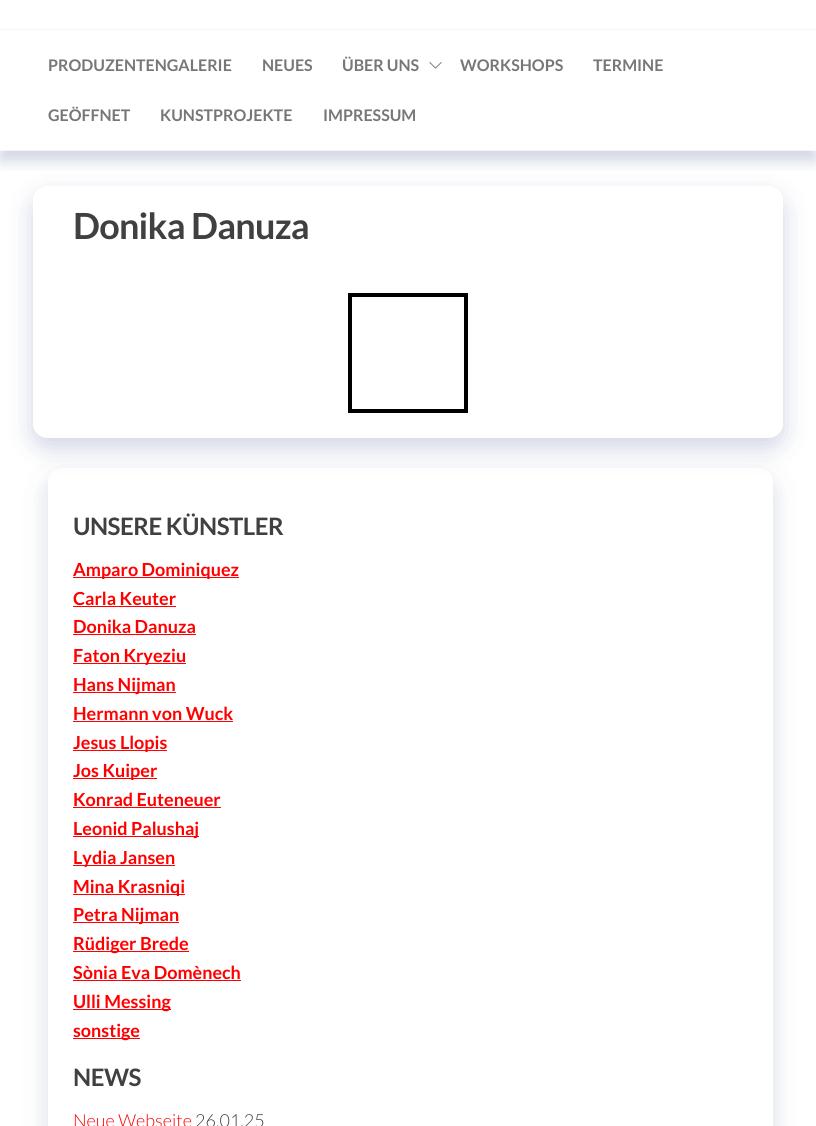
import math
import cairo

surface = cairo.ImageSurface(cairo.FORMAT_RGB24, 816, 1126)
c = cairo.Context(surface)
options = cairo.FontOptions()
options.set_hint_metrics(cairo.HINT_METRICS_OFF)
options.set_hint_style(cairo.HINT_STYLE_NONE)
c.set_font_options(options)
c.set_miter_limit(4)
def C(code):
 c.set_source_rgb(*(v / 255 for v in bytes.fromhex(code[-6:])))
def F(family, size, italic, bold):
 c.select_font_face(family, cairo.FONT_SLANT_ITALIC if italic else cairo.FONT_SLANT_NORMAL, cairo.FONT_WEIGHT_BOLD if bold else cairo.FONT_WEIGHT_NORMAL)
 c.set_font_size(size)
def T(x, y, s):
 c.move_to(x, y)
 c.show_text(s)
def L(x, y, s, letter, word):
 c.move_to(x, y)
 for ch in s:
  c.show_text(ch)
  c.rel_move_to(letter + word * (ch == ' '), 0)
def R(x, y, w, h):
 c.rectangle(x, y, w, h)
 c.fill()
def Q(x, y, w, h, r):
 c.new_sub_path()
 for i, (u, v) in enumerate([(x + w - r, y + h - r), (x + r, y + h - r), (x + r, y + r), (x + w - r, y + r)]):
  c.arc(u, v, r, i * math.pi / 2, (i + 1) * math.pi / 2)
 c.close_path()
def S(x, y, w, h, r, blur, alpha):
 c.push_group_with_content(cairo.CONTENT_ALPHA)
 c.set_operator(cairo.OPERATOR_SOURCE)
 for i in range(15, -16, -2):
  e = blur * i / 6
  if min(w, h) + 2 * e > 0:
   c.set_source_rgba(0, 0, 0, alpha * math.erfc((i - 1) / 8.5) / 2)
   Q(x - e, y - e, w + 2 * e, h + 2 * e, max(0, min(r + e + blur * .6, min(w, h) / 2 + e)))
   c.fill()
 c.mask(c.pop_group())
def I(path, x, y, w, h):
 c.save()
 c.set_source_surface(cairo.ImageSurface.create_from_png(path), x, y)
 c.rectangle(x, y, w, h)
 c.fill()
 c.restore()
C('ffffff')
c.paint()
C('f6f6f6')
R(0,29,816,1)
c.save()
c.rectangle(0,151,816,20)
c.clip()
C('192d78')
S(0,40,816,121,0,7.5,.2)
c.restore()
R(0,150,816,1)
F('Lato',16,0,1)
C('777777')
T(48,71,'PRODUZENTENGALERIE')
T(262,71,'NEUES')
T(342,71,'ÜBER UNS')
I('1.png',429,62,13,7)
T(460,71,'WORKSHOPS')
T(593,71,'TERMINE')
T(48,121,'GEÖFFNET')
T(160,121,'KUNSTPROJEKTE')
T(323,121,'IMPRESSUM')
c.save()
c.set_fill_rule(cairo.FILL_RULE_EVEN_ODD)
c.new_path()
c.move_to(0,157)
c.line_to(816,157)
c.line_to(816,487)
c.line_to(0,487)
c.close_path()
c.move_to(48,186)
c.line_to(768,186)
c.curve_to(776.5,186,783,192.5,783,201)
c.line_to(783,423)
c.curve_to(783,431.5,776.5,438,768,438)
c.line_to(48,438)
c.curve_to(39.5,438,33,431.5,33,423)
c.line_to(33,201)
c.curve_to(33,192.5,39.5,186,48,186)
c.close_path()
c.clip()
C('192d6e')
S(33,196,750,252,15,12.5,.2)
c.restore()
F('Lato',36,0,1)
C('404040')
L(73,239,'Donika Danuza',-.75,0)
c.rectangle(350,295,116,116)
C('000000')
c.set_line_width(4)
c.stroke()
c.save()
c.set_fill_rule(cairo.FILL_RULE_EVEN_ODD)
c.new_path()
c.move_to(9,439)
c.line_to(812,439)
c.line_to(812,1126)
c.line_to(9,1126)
c.close_path()
c.move_to(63,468)
c.line_to(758,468)
c.curve_to(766.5,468,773,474.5,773,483)
c.line_to(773,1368)
c.curve_to(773,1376.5,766.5,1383,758,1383)
c.line_to(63,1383)
c.curve_to(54.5,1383,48,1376.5,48,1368)
c.line_to(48,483)
c.curve_to(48,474.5,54.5,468,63,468)
c.close_path()
c.clip()
C('1c2d71')
S(48,478,725,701,15,12.5,.17)
c.restore()
F('Lato',24,0,1)
C('404040')
L(73,535,'UNSERE KÜNSTLER',-.5,0)
C('ff0000')
R(73,577,166,1)
F('Lato',18,0,1)
T(73,576,'Amparo Dominiquez')
T(73,605,'Carla Keuter')
R(73,606,103,1)
T(73,633,'Donika Danuza')
R(73,634,123,1)
R(73,663,113,1)
T(73,662,'Faton Kryeziu')
R(73,692,103,1)
T(73,691,'Hans Nijman')
T(73,720,'Hermann von Wuck')
R(73,721,160,1)
R(73,750,94,1)
T(73,749,'Jesus Llopis')
R(73,778,84,1)
T(73,777,'Jos Kuiper')
T(73,806,'Konrad Euteneuer')
R(73,807,148,1)
R(73,836,126,1)
T(73,835,'Leonid Palushaj')
R(73,865,102,1)
T(73,864,'Lydia Jansen')
R(73,894,112,1)
T(73,893,'Mina Krasniqi')
R(73,922,106,1)
T(73,921,'Petra Nijman')
R(73,951,116,1)
T(73,950,'Rüdiger Brede')
T(73,979,'Sònia Eva Domènech')
R(73,980,168,1)
R(73,1009,98,1)
T(73,1008,'Ulli Messing')
R(73,1038,67,1)
T(73,1037,'sonstige')
F('Lato',24,0,1)
C('404040')
L(73,1086,'NEWS',-.5,0)
F('Lato Light',18,0,0)
C('ff0000')
T(73,1127,'Neue Webseite')
C('404040')
T(195,1127,'26.01.25')
surface.write_to_png('o.png')
